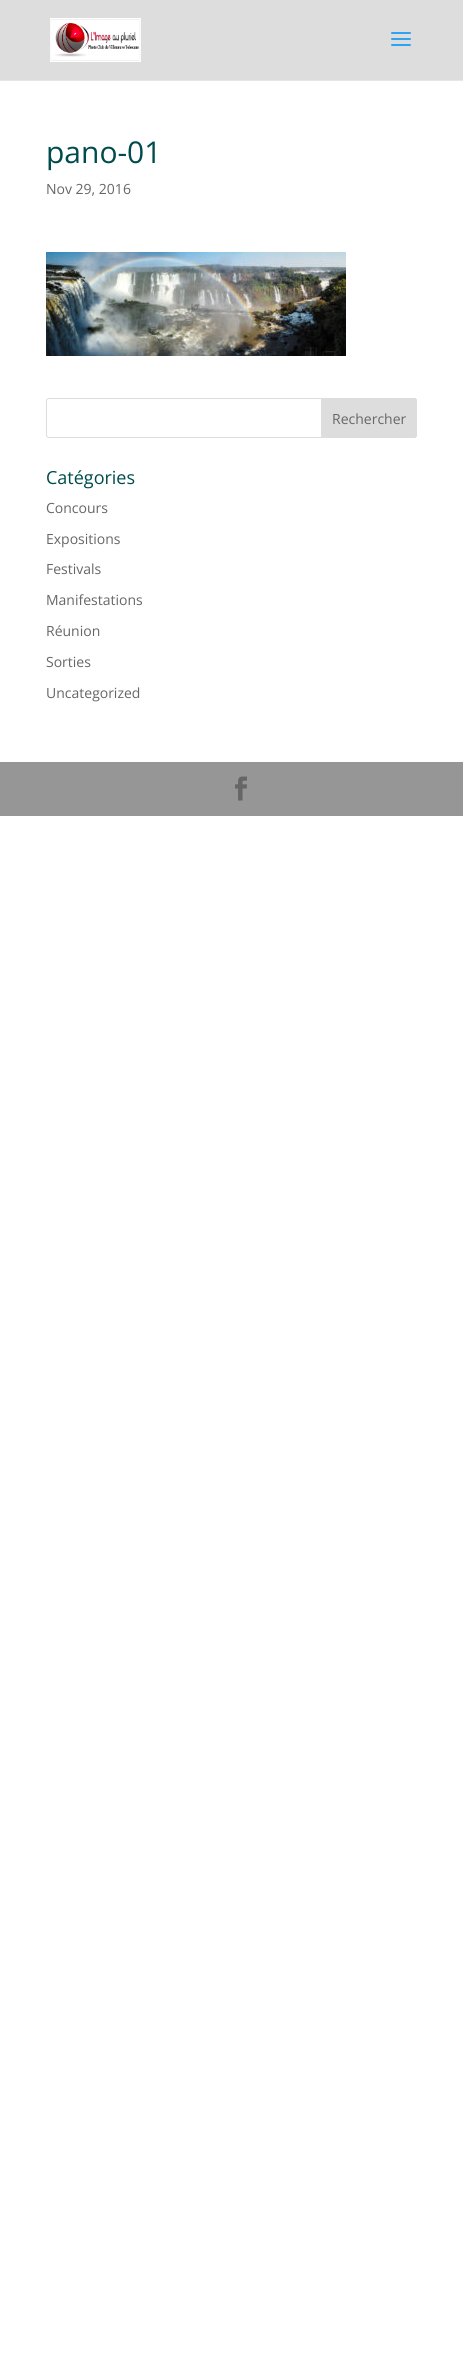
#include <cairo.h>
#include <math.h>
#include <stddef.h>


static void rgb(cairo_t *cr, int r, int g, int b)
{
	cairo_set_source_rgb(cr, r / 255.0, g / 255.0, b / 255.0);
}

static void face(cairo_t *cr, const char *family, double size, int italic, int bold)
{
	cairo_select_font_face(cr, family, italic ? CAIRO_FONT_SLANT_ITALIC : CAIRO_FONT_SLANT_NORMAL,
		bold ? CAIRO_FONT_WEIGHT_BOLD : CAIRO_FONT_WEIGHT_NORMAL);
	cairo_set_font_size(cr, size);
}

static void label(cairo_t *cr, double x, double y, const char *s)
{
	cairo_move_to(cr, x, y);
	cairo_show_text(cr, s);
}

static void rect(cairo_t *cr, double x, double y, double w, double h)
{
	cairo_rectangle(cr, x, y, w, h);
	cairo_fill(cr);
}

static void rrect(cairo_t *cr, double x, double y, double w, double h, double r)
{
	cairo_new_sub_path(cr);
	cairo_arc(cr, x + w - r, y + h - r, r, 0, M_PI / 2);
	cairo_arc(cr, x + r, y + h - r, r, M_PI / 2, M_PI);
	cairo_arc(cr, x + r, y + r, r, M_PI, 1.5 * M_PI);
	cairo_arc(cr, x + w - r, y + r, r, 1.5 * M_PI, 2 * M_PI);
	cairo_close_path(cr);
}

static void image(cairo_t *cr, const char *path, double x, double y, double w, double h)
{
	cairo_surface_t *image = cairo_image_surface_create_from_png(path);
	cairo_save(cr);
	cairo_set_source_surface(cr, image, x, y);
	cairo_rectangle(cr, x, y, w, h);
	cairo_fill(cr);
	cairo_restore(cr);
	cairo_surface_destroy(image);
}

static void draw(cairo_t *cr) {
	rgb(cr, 255, 255, 255);
	cairo_paint(cr);
	rgb(cr, 230, 230, 230);
	rect(cr, 0, 80, 463, 1);
	rgb(cr, 221, 221, 221);
	rect(cr, 0, 0, 463, 80);
	image(cr, "image0.png", 50, 18, 91, 44);
	image(cr, "image1.png", 391, 32, 20, 14);
	face(cr, "Open Sans", 30, 0, 0);
	rgb(cr, 0, 76, 76);
	label(cr, 46, 163, "pano-01");
	face(cr, "Open Sans", 14, 0, 0);
	rgb(cr, 102, 102, 102);
	label(cr, 46, 194, "Nov 29, 2016");
	image(cr, "image2.png", 46, 252, 300, 104);
	rrect(cr, 46.5, 398.5, 370, 39, 2.5);
	rgb(cr, 221, 221, 221);
	cairo_set_line_width(cr, 1);
	cairo_stroke(cr);
	cairo_new_path(cr);
	cairo_move_to(cr, 321.5, 398.5);
	cairo_line_to(cr, 414, 398.5);
	cairo_curve_to(cr, 415.5, 398.5, 416.5, 399.5, 416.5, 401);
	cairo_line_to(cr, 416.5, 435);
	cairo_curve_to(cr, 416.5, 436.5, 415.5, 437.5, 414, 437.5);
	cairo_line_to(cr, 321.5, 437.5);
	cairo_close_path(cr);
	cairo_fill_preserve(cr);
	cairo_stroke(cr);
	rgb(cr, 102, 102, 102);
	label(cr, 332, 424, "Rechercher");
	face(cr, "Open Sans", 18, 0, 0);
	rgb(cr, 0, 76, 76);
	label(cr, 46, 484, "Catégories");
	face(cr, "Open Sans", 14, 0, 0);
	rgb(cr, 102, 102, 102);
	label(cr, 46, 513, "Concours");
	label(cr, 46, 544, "Expositions");
	label(cr, 46, 574, "Festivals");
	label(cr, 46, 605, "Manifestations");
	label(cr, 46, 636, "Réunion");
	label(cr, 46, 667, "Sorties");
	label(cr, 46, 698, "Uncategorized");
	rgb(cr, 150, 150, 150);
	rect(cr, 0, 762, 463, 54);
	image(cr, "image3.png", 235, 776, 12, 25);
}

int main(void) {
	cairo_surface_t *surface = cairo_image_surface_create(CAIRO_FORMAT_RGB24, 463, 2366);
	cairo_t *cr = cairo_create(surface);
	cairo_font_options_t *options = cairo_font_options_create();
	cairo_font_options_set_hint_metrics(options, CAIRO_HINT_METRICS_OFF);
	cairo_font_options_set_hint_style(options, CAIRO_HINT_STYLE_NONE);
	cairo_set_font_options(cr, options);
	cairo_set_miter_limit(cr, 4);
	draw(cr);
	cairo_surface_write_to_png(surface, "render.png");
	cairo_font_options_destroy(options);
	cairo_destroy(cr);
	cairo_surface_destroy(surface);
	return 0;
}
